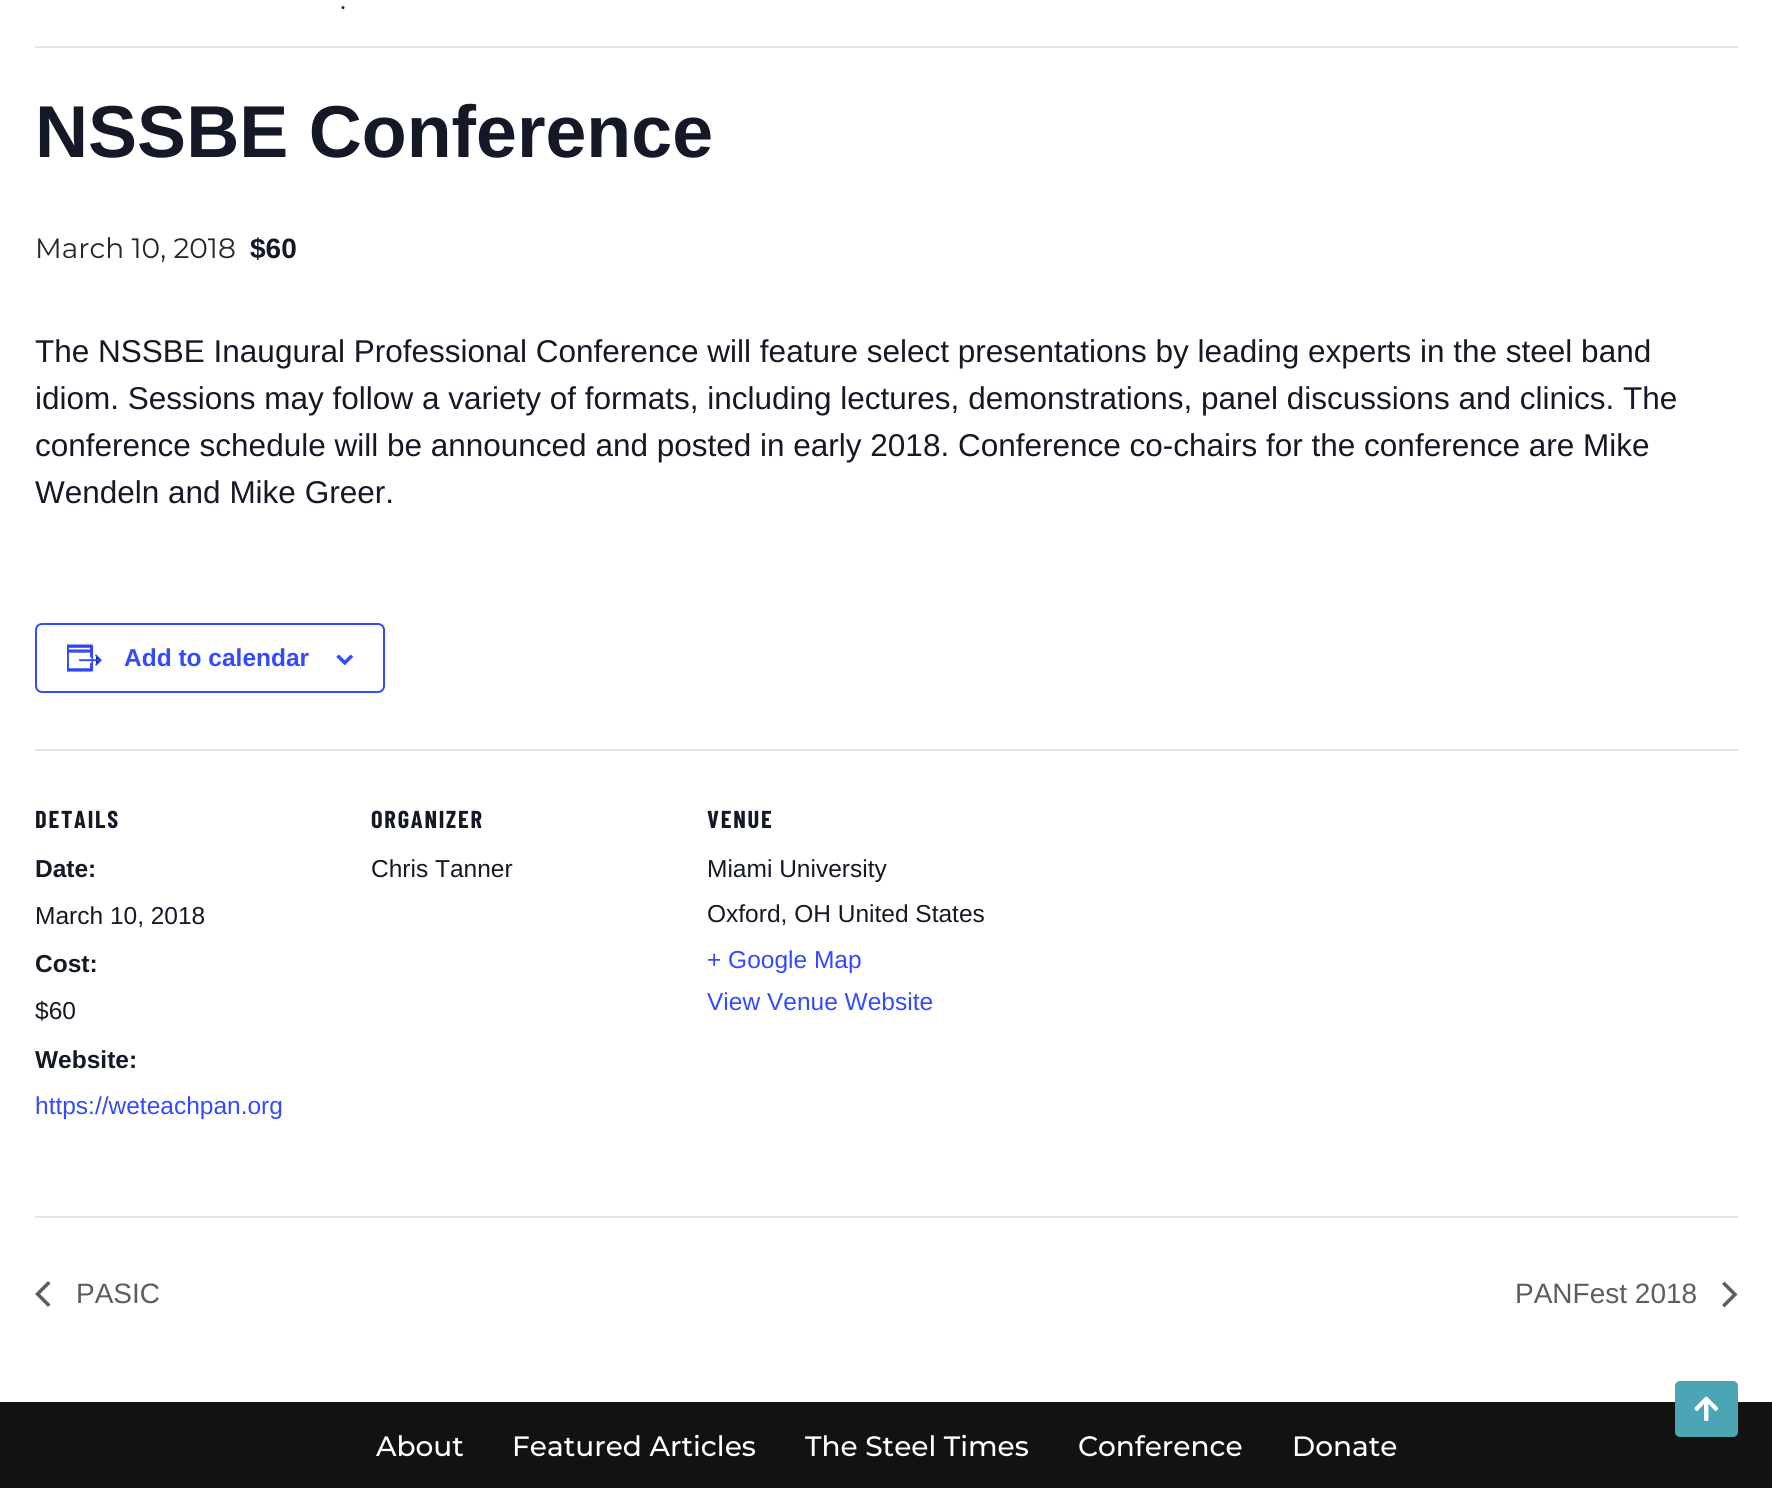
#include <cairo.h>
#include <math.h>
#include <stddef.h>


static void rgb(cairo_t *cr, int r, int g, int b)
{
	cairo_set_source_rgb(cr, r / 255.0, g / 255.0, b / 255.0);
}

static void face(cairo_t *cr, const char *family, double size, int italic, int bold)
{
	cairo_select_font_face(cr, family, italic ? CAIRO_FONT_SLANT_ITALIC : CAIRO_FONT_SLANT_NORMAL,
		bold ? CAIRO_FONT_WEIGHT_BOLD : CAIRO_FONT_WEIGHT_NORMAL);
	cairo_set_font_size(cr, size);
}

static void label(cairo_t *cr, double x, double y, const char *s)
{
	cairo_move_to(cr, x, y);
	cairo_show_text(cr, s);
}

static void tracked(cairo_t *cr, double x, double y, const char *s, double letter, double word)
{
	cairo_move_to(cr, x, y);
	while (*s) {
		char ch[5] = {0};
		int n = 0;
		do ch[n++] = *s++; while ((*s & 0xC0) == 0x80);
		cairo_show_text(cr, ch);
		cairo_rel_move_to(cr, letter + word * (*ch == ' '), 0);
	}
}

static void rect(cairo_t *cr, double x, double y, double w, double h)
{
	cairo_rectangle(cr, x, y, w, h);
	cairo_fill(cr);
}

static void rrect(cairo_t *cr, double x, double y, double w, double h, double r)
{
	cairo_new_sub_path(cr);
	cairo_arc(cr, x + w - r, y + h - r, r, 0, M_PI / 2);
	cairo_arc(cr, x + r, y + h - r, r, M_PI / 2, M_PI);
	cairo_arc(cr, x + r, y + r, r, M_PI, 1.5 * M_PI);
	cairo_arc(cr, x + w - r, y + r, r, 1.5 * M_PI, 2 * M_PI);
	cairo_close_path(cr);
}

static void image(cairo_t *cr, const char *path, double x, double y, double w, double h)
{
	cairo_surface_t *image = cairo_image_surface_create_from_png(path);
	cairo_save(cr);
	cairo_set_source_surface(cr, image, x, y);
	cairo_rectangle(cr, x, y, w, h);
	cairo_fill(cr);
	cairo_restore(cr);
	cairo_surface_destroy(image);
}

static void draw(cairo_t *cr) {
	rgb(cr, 255, 255, 255);
	cairo_paint(cr);
	rgb(cr, 228, 228, 228);
	rect(cr, 35, 46, 1703, 2);
	face(cr, "Montserrat", 28, 0, 0);
	rgb(cr, 39, 38, 38);
	label(cr, 340, 9, ".");
	face(cr, "Liberation Sans", 73.5, 0, 1);
	rgb(cr, 20, 24, 39);
	label(cr, 35, 157, "NSSBE Conference");
	face(cr, "Montserrat", 28, 0, 0);
	rgb(cr, 39, 38, 38);
	label(cr, 35, 258, "March 10, 2018");
	face(cr, "Liberation Sans", 28, 0, 1);
	rgb(cr, 20, 24, 39);
	label(cr, 250, 258, "$60");
	face(cr, "Liberation Sans", 31.5, 0, 0);
	label(cr, 35, 362, "The NSSBE Inaugural Professional Conference will feature select presentations by leading experts in the steel band");
	label(cr, 35, 409, "idiom. Sessions may follow a variety of formats, including lectures, demonstrations, panel discussions and clinics. The");
	label(cr, 35, 456, "conference schedule will be announced and posted in early 2018. Conference co-chairs for the conference are Mike");
	label(cr, 35, 503, "Wendeln and Mike Greer.");
	rrect(cr, 36, 624, 348, 68, 6);
	rgb(cr, 51, 74, 255);
	cairo_stroke(cr);
	image(cr, "image0.png", 67, 644, 35, 28);
	face(cr, "Liberation Sans", 24.5, 0, 1);
	label(cr, 124, 666, "Add to calendar");
	image(cr, "image1.png", 336, 655, 18, 10);
	rgb(cr, 228, 228, 228);
	rect(cr, 35, 749, 1703, 2);
	face(cr, "Barlow Condensed", 24.5, 0, 1);
	rgb(cr, 20, 24, 39);
	tracked(cr, 35, 828, "DETAILS", 1.75, 0);
	face(cr, "Liberation Sans", 24.5, 0, 1);
	label(cr, 35, 877, "Date:");
	face(cr, "Liberation Sans", 24.5, 0, 0);
	label(cr, 35, 924, "March 10, 2018");
	face(cr, "Liberation Sans", 24.5, 0, 1);
	label(cr, 35, 972, "Cost:");
	face(cr, "Liberation Sans", 24.5, 0, 0);
	label(cr, 35, 1019, "$60");
	face(cr, "Liberation Sans", 24.5, 0, 1);
	label(cr, 35, 1068, "Website:");
	face(cr, "Liberation Sans", 24.5, 0, 0);
	rgb(cr, 51, 74, 255);
	label(cr, 35, 1114, "https://weteachpan.org");
	face(cr, "Barlow Condensed", 24.5, 0, 1);
	rgb(cr, 20, 24, 39);
	tracked(cr, 371, 828, "ORGANIZER", 1.75, 0);
	face(cr, "Liberation Sans", 24.5, 0, 0);
	label(cr, 371, 877, "Chris Tanner");
	face(cr, "Barlow Condensed", 24.5, 0, 1);
	tracked(cr, 707, 828, "VENUE", 1.75, 0);
	face(cr, "Liberation Sans", 24.5, 0, 0);
	label(cr, 707, 877, "Miami University");
	label(cr, 707, 922, "Oxford, OH United States");
	rgb(cr, 51, 74, 255);
	label(cr, 707, 968, "+ Google Map");
	label(cr, 707, 1010, "View Venue Website");
	rgb(cr, 228, 228, 228);
	rect(cr, 35, 1216, 1703, 2);
	rgb(cr, 93, 93, 93);
	cairo_new_path(cr);
	cairo_move_to(cr, 50.5, 1304.5);
	cairo_line_to(cr, 48, 1307);
	cairo_line_to(cr, 35, 1294);
	cairo_line_to(cr, 48, 1281);
	cairo_line_to(cr, 50.5, 1283.5);
	cairo_line_to(cr, 40, 1294);
	cairo_close_path(cr);
	cairo_fill(cr);
	face(cr, "Liberation Sans", 28, 0, 0);
	label(cr, 76, 1303, "PASIC");
	label(cr, 1515, 1303, "PANFest 2018");
	cairo_new_path(cr);
	cairo_move_to(cr, 1722, 1284);
	cairo_line_to(cr, 1724.5, 1281.5);
	cairo_line_to(cr, 1737.5, 1294.5);
	cairo_line_to(cr, 1724.5, 1307.5);
	cairo_line_to(cr, 1722, 1305);
	cairo_line_to(cr, 1732.5, 1294.5);
	cairo_close_path(cr);
	cairo_fill(cr);
	rgb(cr, 18, 18, 18);
	rect(cr, 0, 1402, 1772, 86);
	rgb(cr, 75, 165, 181);
	rrect(cr, 1675, 1381, 63, 56, 5);
	cairo_fill(cr);
	image(cr, "image2.png", 1694, 1396, 25, 25);
	face(cr, "Montserrat Medium", 28, 0, 0);
	rgb(cr, 255, 255, 255);
	label(cr, 376, 1456, "About");
	label(cr, 512, 1456, "Featured Articles");
	label(cr, 805, 1456, "The Steel Times");
	label(cr, 1078, 1456, "Conference");
	label(cr, 1292, 1456, "Donate");
}

int main(void) {
	cairo_surface_t *surface = cairo_image_surface_create(CAIRO_FORMAT_RGB24, 1772, 1488);
	cairo_t *cr = cairo_create(surface);
	cairo_font_options_t *options = cairo_font_options_create();
	cairo_font_options_set_hint_metrics(options, CAIRO_HINT_METRICS_OFF);
	cairo_font_options_set_hint_style(options, CAIRO_HINT_STYLE_NONE);
	cairo_set_font_options(cr, options);
	cairo_set_miter_limit(cr, 4);
	draw(cr);
	cairo_surface_write_to_png(surface, "render.png");
	cairo_font_options_destroy(options);
	cairo_destroy(cr);
	cairo_surface_destroy(surface);
	return 0;
}
